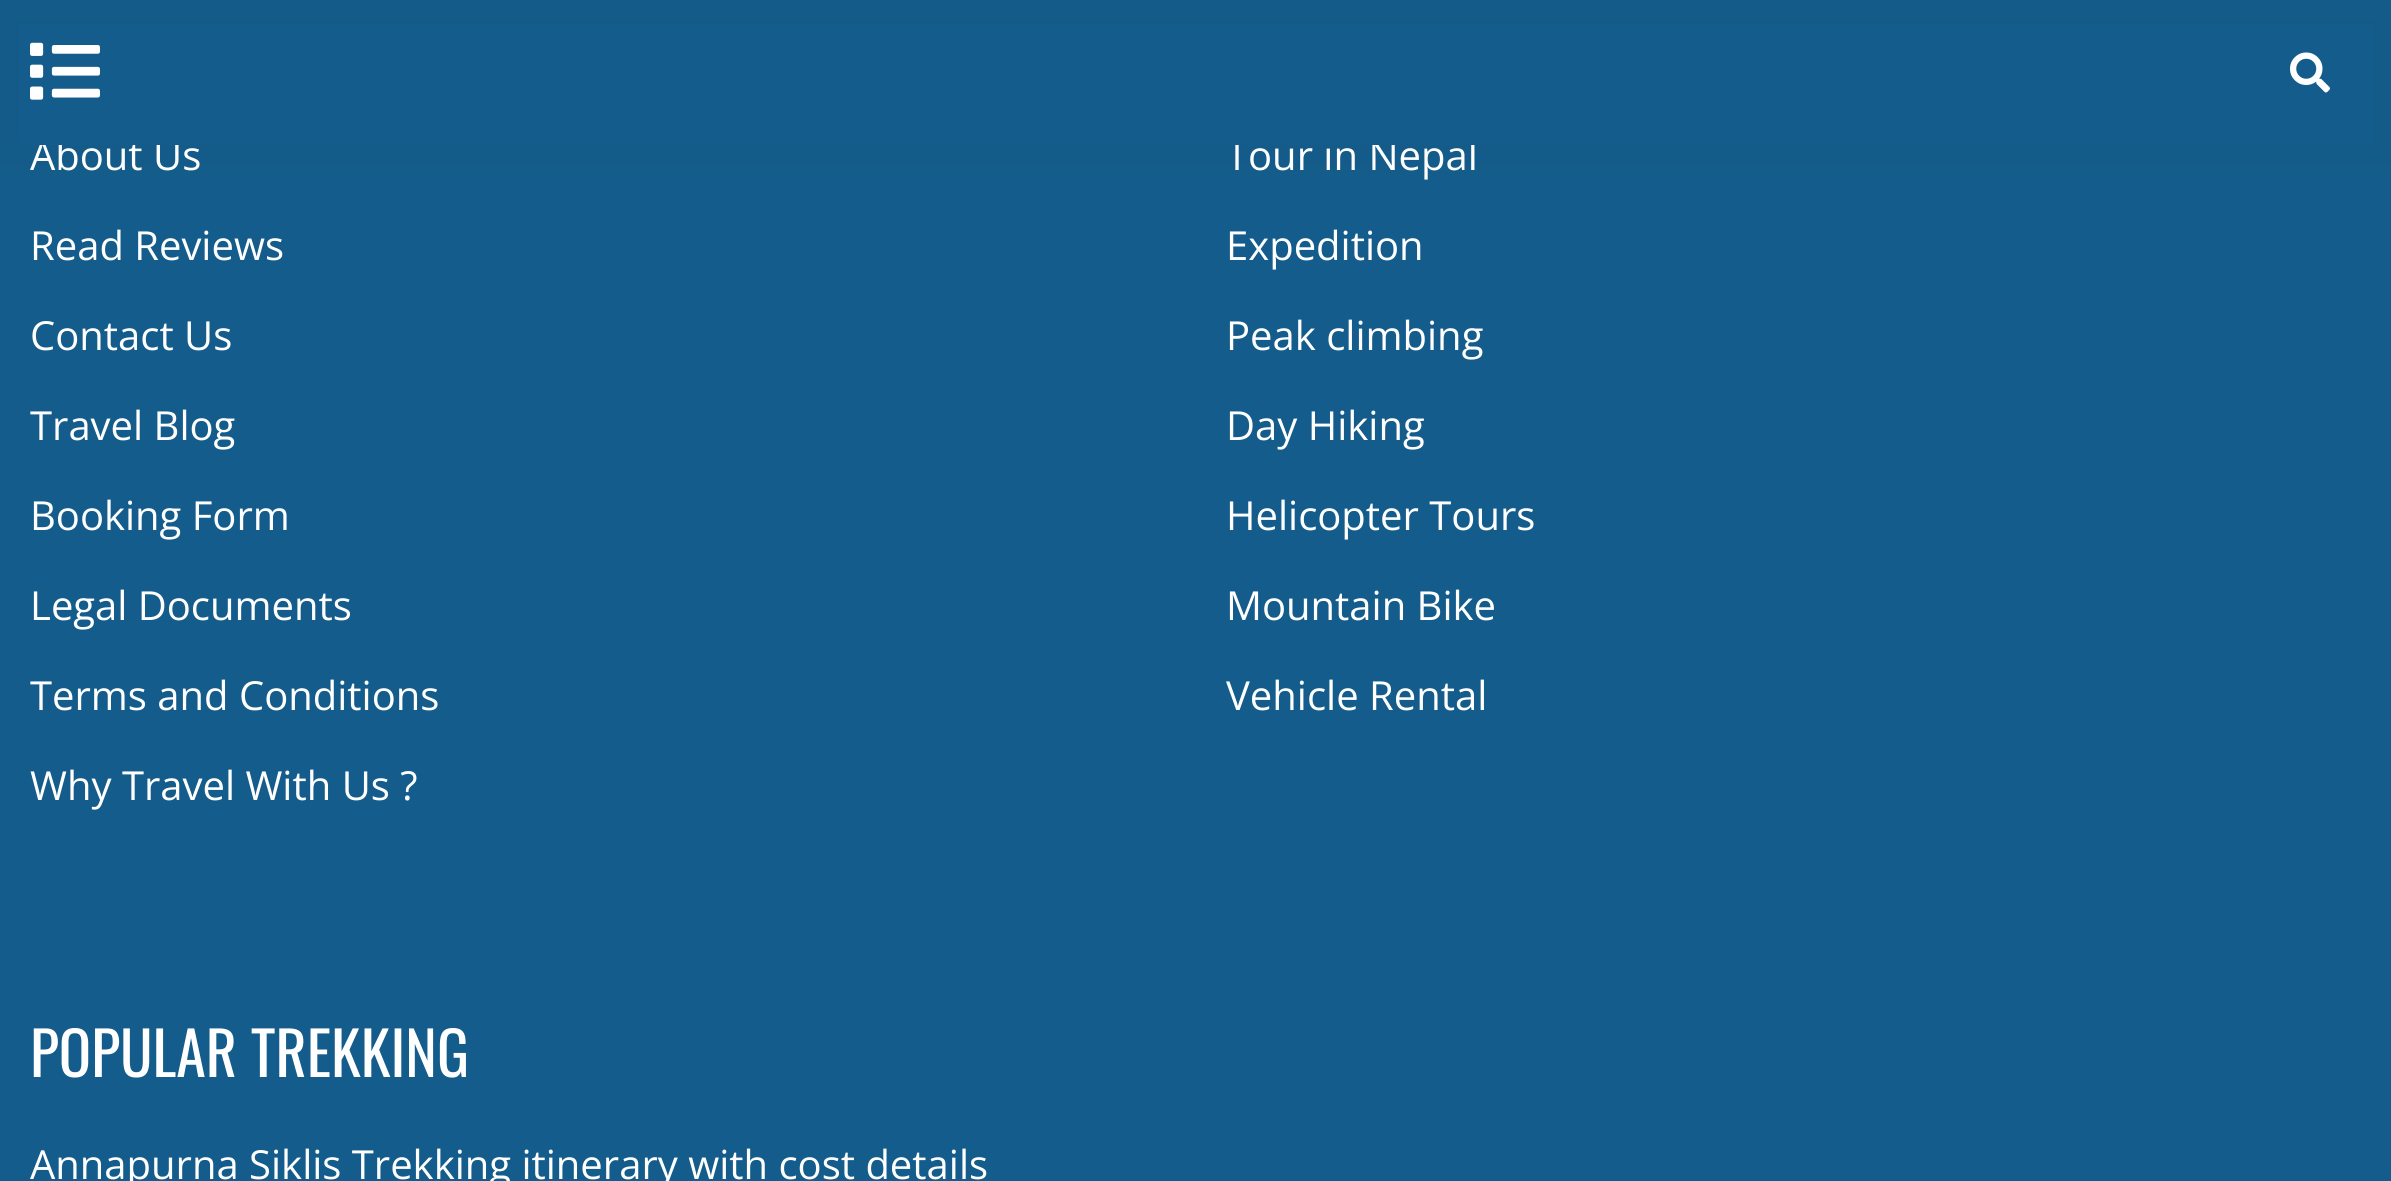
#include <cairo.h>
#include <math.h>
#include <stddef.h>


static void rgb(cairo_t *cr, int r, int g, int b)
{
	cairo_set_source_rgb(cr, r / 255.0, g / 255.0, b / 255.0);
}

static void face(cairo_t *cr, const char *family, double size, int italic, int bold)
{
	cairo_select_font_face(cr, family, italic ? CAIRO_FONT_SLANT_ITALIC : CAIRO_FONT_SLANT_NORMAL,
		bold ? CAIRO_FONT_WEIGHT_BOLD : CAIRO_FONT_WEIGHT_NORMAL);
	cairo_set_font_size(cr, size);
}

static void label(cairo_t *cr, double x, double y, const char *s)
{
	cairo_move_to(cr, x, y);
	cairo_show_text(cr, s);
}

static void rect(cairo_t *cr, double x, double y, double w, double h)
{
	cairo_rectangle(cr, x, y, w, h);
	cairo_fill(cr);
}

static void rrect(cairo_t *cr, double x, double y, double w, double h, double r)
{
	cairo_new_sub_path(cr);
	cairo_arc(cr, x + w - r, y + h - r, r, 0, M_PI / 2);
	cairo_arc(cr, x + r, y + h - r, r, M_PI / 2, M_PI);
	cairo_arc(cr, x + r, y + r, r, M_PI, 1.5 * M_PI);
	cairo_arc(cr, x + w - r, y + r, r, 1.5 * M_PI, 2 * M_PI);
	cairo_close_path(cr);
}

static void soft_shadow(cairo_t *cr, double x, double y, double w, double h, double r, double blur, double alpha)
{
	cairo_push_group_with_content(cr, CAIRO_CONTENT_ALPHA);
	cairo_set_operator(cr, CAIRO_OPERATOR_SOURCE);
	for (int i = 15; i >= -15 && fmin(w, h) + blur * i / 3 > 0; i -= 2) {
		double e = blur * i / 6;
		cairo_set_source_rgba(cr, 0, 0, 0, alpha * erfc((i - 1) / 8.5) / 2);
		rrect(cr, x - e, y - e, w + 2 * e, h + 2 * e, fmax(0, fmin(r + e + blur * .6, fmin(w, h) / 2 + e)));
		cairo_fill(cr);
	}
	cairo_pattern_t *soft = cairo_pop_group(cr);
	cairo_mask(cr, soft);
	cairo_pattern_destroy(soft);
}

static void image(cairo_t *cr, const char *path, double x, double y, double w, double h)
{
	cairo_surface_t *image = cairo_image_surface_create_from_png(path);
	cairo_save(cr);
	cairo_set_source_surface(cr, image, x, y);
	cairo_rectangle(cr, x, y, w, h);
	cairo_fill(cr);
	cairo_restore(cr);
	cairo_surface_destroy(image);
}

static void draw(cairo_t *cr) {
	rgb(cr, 20, 92, 139);
	cairo_paint(cr);
	rgb(cr, 18, 66, 101);
	soft_shadow(cr, 0, 5, 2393, 145, 0, 19, 0.08);
	face(cr, "Open Sans", 40, 0, 0);
	rgb(cr, 255, 255, 255);
	label(cr, 30, 170, "About Us");
	label(cr, 1226, 170, "Tour in Nepal");
	rgb(cr, 20, 92, 139);
	rect(cr, 19, 24, 2355, 121);
	image(cr, "image0.png", 30, 42, 70, 58);
	image(cr, "image1.png", 2290, 52, 40, 41);
	rgb(cr, 255, 255, 255);
	label(cr, 30, 260, "Read Reviews");
	label(cr, 30, 350, "Contact Us");
	label(cr, 30, 440, "Travel Blog");
	label(cr, 30, 530, "Booking Form");
	label(cr, 30, 620, "Legal Documents");
	label(cr, 30, 710, "Terms and Conditions");
	label(cr, 30, 800, "Why Travel With Us ?");
	label(cr, 1226, 260, "Expedition");
	label(cr, 1226, 350, "Peak climbing");
	label(cr, 1226, 440, "Day Hiking");
	label(cr, 1226, 530, "Helicopter Tours");
	label(cr, 1226, 620, "Mountain Bike");
	label(cr, 1226, 710, "Vehicle Rental");
	face(cr, "Oswald", 60, 0, 0);
	label(cr, 30, 1077, "POPULAR TREKKING");
	face(cr, "Open Sans", 40, 0, 0);
	label(cr, 30, 1179, "Annapurna Siklis Trekking itinerary with cost details");
}

int main(void) {
	cairo_surface_t *surface = cairo_image_surface_create(CAIRO_FORMAT_RGB24, 2391, 1181);
	cairo_t *cr = cairo_create(surface);
	cairo_font_options_t *options = cairo_font_options_create();
	cairo_font_options_set_hint_metrics(options, CAIRO_HINT_METRICS_OFF);
	cairo_font_options_set_hint_style(options, CAIRO_HINT_STYLE_NONE);
	cairo_set_font_options(cr, options);
	cairo_set_miter_limit(cr, 4);
	draw(cr);
	cairo_surface_write_to_png(surface, "render.png");
	cairo_font_options_destroy(options);
	cairo_destroy(cr);
	cairo_surface_destroy(surface);
	return 0;
}
